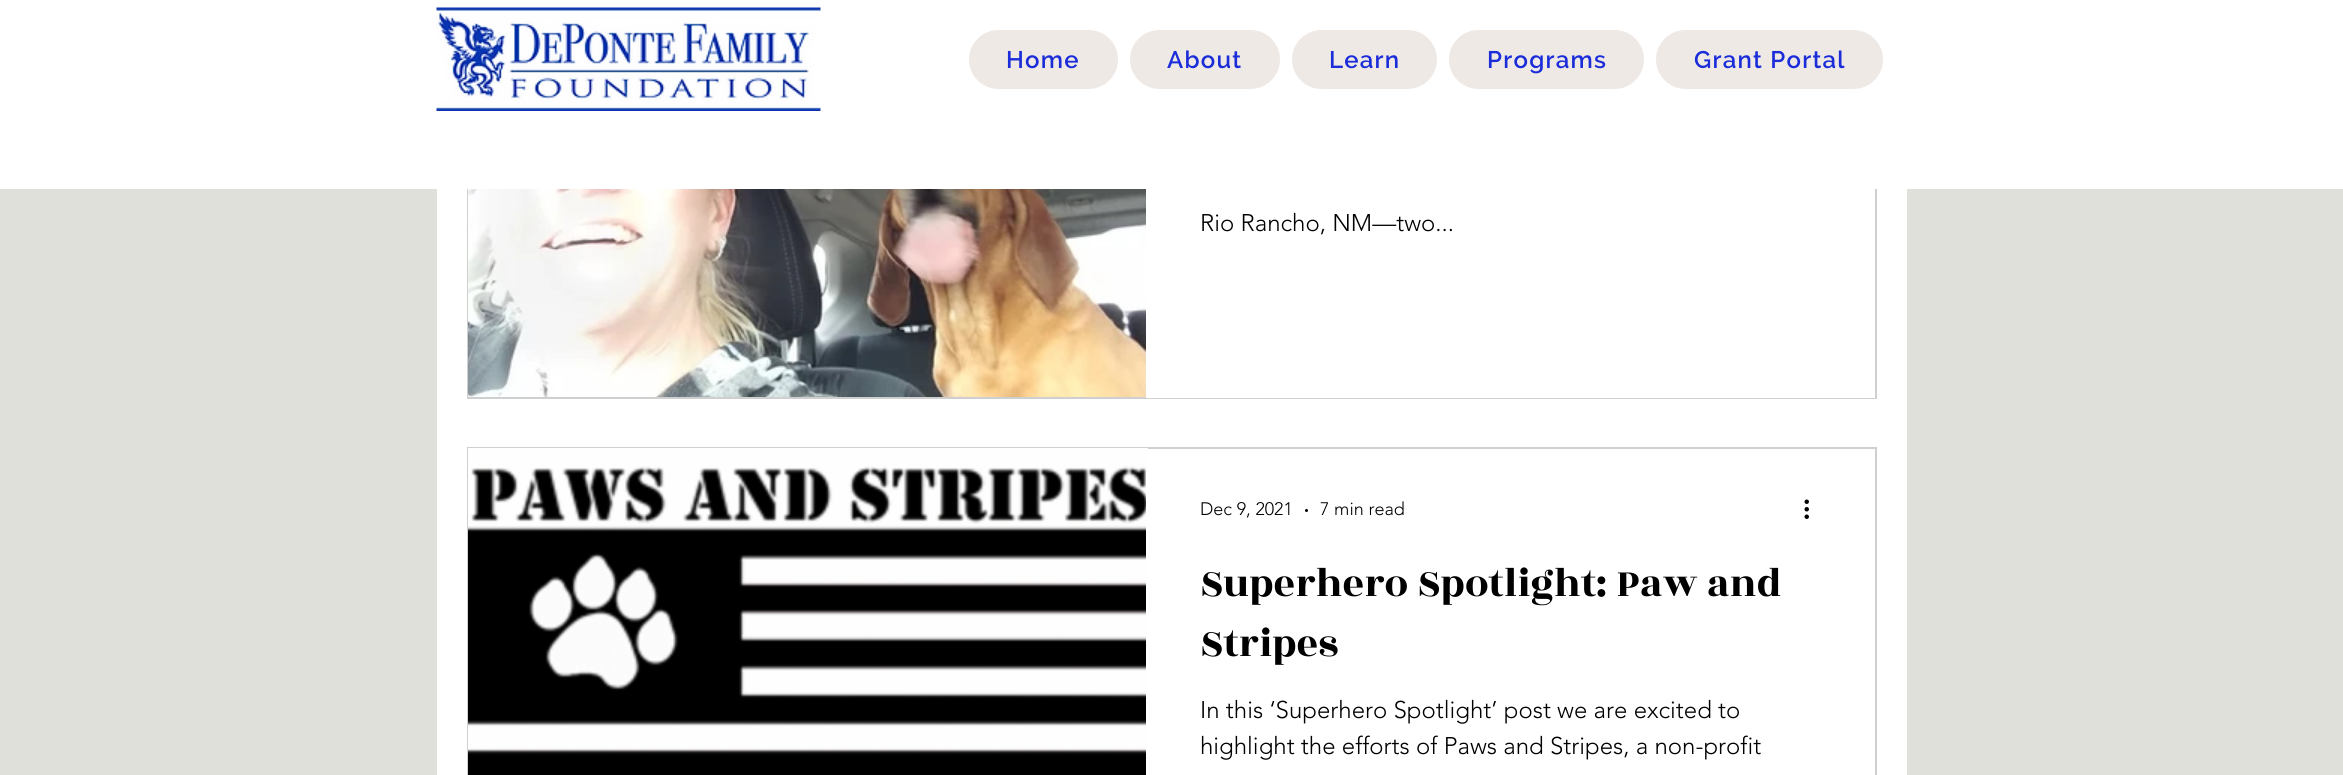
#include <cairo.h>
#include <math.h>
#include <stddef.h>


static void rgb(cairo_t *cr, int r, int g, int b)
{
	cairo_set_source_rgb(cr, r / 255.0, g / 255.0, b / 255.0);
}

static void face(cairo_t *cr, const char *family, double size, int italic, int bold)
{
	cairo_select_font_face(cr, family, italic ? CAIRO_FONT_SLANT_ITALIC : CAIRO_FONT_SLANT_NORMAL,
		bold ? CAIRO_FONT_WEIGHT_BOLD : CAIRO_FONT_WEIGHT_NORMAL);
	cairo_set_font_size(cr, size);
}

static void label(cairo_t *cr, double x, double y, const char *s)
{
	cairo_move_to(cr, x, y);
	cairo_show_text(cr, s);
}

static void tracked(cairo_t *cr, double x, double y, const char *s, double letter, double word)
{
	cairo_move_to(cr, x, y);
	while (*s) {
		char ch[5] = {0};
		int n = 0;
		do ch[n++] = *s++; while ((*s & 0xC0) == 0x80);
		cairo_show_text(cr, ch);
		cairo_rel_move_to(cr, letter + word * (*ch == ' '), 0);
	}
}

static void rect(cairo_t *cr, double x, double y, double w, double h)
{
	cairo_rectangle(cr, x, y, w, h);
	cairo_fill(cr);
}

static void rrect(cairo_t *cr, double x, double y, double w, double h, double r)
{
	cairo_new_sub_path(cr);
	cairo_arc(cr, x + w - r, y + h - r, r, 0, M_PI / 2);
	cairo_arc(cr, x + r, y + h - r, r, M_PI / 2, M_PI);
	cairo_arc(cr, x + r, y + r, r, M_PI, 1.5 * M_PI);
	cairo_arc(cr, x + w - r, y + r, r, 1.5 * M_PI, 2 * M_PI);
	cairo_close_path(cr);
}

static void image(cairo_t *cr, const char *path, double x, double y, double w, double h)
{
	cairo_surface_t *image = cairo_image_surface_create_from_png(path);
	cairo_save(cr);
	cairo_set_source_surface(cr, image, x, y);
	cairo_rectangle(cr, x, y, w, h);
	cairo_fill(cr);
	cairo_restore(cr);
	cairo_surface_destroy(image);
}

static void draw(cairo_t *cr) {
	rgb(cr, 223, 224, 218);
	cairo_paint(cr);
	rgb(cr, 255, 255, 255);
	rect(cr, 437, 189, 1470, 586);
	cairo_rectangle(cr, 468, -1, 1408, 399);
	rgb(cr, 207, 207, 207);
	cairo_stroke(cr);
	rgb(cr, 255, 255, 255);
	rect(cr, 0, 0, 2343, 189);
	image(cr, "image0.png", 436, 7, 385, 104);
	rgb(cr, 239, 233, 230);
	rrect(cr, 969, 30, 149, 59, 29.5);
	cairo_fill(cr);
	face(cr, "Raleway SemiBold", 24, 0, 0);
	rgb(cr, 26, 45, 217);
	tracked(cr, 1006, 68, "Home", 1.25, 0);
	rgb(cr, 239, 233, 230);
	rrect(cr, 1130, 30, 150, 59, 29.5);
	cairo_fill(cr);
	rgb(cr, 26, 45, 217);
	tracked(cr, 1167, 68, "About", 1.25, 0);
	rgb(cr, 239, 233, 230);
	rrect(cr, 1292, 30, 145, 59, 29.5);
	cairo_fill(cr);
	rgb(cr, 26, 45, 217);
	tracked(cr, 1329, 68, "Learn", 1.25, 0);
	rgb(cr, 239, 233, 230);
	rrect(cr, 1449, 30, 195, 59, 29.5);
	cairo_fill(cr);
	rgb(cr, 26, 45, 217);
	tracked(cr, 1487, 68, "Programs", 1.25, 0);
	rgb(cr, 239, 233, 230);
	rrect(cr, 1656, 30, 227, 59, 29.5);
	cairo_fill(cr);
	rgb(cr, 26, 45, 217);
	tracked(cr, 1694, 68, "Grant Portal", 1.25, 0);
	image(cr, "image1.png", 468, 189, 678, 208);
	rgb(cr, 255, 255, 255);
	rect(cr, 1146, 397, 729, 1);
	face(cr, "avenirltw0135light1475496 Light", 24, 0, 0);
	rgb(cr, 0, 0, 0);
	label(cr, 1200, 231, "Rio Rancho, NM—two...");
	cairo_rectangle(cr, 468, 448, 1408, 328);
	rgb(cr, 207, 207, 207);
	cairo_stroke(cr);
	image(cr, "image2.png", 468, 448, 680, 327);
	rgb(cr, 255, 255, 255);
	rect(cr, 1146, 467, 2, 308);
	face(cr, "avenirltw0135light1475496 Light", 18, 0, 0);
	rgb(cr, 0, 0, 0);
	label(cr, 1200, 515, "Dec 9, 2021");
	cairo_new_path(cr);
	cairo_arc(cr, 1306.5, 510.5, 1.5, 0, 2 * M_PI);
	cairo_fill(cr);
	label(cr, 1320, 515, "7 min read");
	image(cr, "image3.png", 1804, 499, 5, 20);
	face(cr, "Rozha One", 42, 0, 0);
	label(cr, 1200, 596, "Superhero Spotlight: Paw and");
	label(cr, 1200, 656, "Stripes");
	face(cr, "avenirltw0135light1475496 Light", 24, 0, 0);
	label(cr, 1200, 718, "In this ‘Superhero Spotlight’ post we are excited to");
	label(cr, 1200, 754, "highlight the efforts of Paws and Stripes, a non-profit");
}

int main(void) {
	cairo_surface_t *surface = cairo_image_surface_create(CAIRO_FORMAT_RGB24, 2343, 775);
	cairo_t *cr = cairo_create(surface);
	cairo_font_options_t *options = cairo_font_options_create();
	cairo_font_options_set_hint_metrics(options, CAIRO_HINT_METRICS_OFF);
	cairo_font_options_set_hint_style(options, CAIRO_HINT_STYLE_NONE);
	cairo_set_font_options(cr, options);
	cairo_set_miter_limit(cr, 4);
	draw(cr);
	cairo_surface_write_to_png(surface, "render.png");
	cairo_font_options_destroy(options);
	cairo_destroy(cr);
	cairo_surface_destroy(surface);
	return 0;
}
